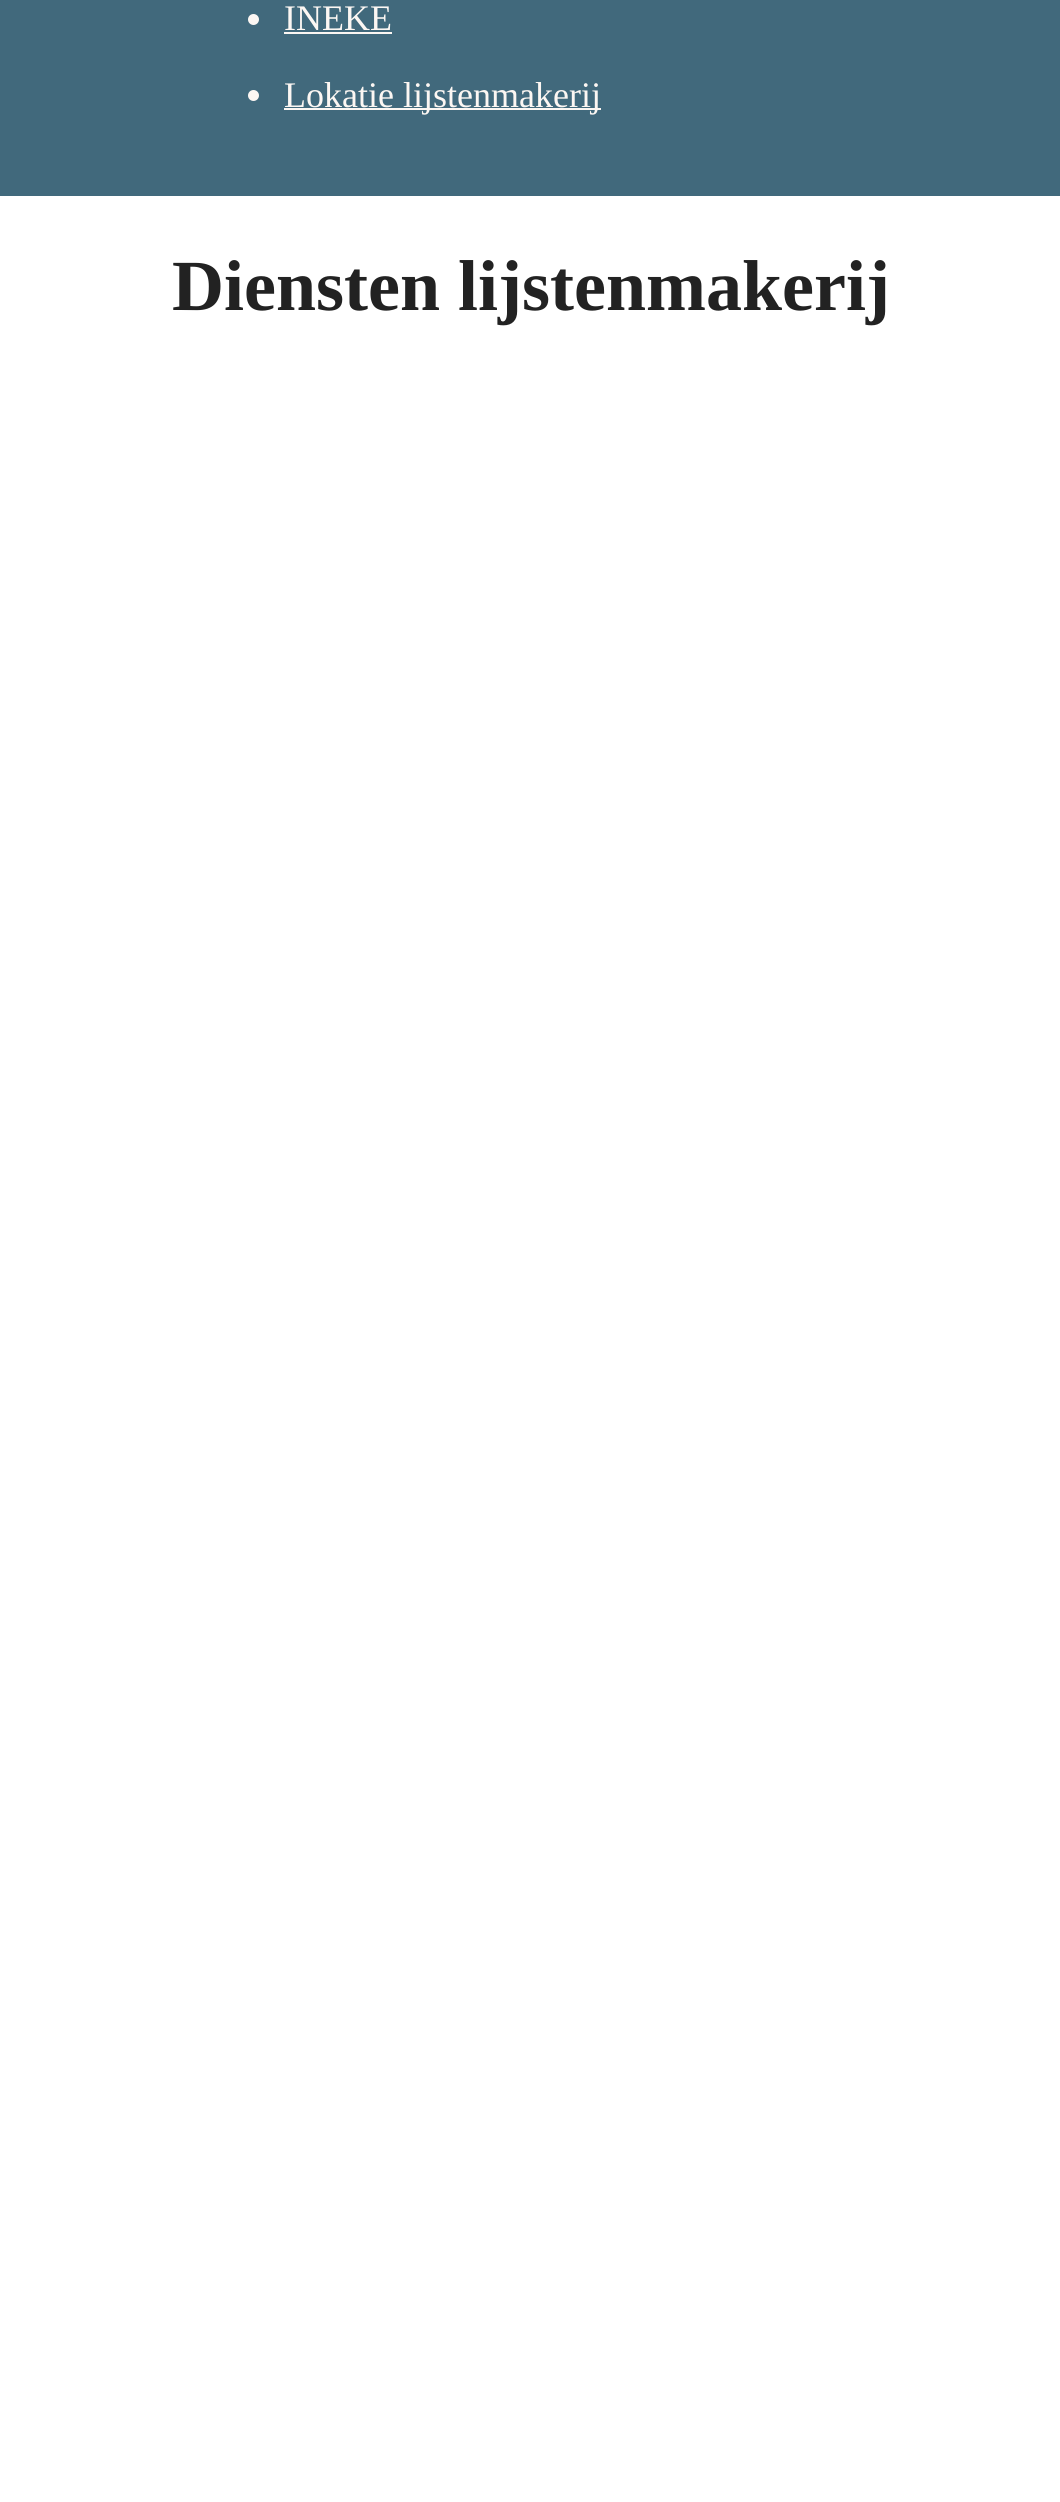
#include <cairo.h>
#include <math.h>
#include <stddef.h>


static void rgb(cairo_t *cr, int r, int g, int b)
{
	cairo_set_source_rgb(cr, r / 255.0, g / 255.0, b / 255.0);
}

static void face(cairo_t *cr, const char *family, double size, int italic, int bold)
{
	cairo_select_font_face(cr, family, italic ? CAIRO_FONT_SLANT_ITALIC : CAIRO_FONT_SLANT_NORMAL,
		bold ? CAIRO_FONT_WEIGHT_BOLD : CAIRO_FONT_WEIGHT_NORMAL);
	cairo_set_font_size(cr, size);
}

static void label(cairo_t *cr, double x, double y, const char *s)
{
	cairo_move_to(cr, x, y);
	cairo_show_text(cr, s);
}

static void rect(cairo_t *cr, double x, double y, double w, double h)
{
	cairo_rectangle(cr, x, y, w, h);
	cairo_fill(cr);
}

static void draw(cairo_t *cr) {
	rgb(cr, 255, 255, 255);
	cairo_paint(cr);
	rgb(cr, 65, 105, 124);
	rect(cr, 0, 0, 1060, 196);
	rgb(cr, 252, 247, 243);
	cairo_arc(cr, 253.5, 19.5, 5.5, 0, 2 * M_PI);
	cairo_fill(cr);
	face(cr, "Liberation Serif", 36, 0, 0);
	label(cr, 284, 30, "INEKE");
	rect(cr, 284, 32, 108, 2);
	cairo_new_path(cr);
	cairo_arc(cr, 253.5, 95.5, 5.5, 0, 2 * M_PI);
	cairo_fill(cr);
	rect(cr, 284, 108, 317, 2);
	label(cr, 284, 107, "Lokatie lijstenmakerij");
	face(cr, "Liberation Serif", 72, 0, 1);
	rgb(cr, 34, 34, 34);
	label(cr, 172, 310, "Diensten lijstenmakerij");
}

int main(void) {
	cairo_surface_t *surface = cairo_image_surface_create(CAIRO_FORMAT_RGB24, 1060, 2502);
	cairo_t *cr = cairo_create(surface);
	cairo_font_options_t *options = cairo_font_options_create();
	cairo_font_options_set_hint_metrics(options, CAIRO_HINT_METRICS_OFF);
	cairo_font_options_set_hint_style(options, CAIRO_HINT_STYLE_NONE);
	cairo_set_font_options(cr, options);
	cairo_set_miter_limit(cr, 4);
	draw(cr);
	cairo_surface_write_to_png(surface, "render.png");
	cairo_font_options_destroy(options);
	cairo_destroy(cr);
	cairo_surface_destroy(surface);
	return 0;
}
